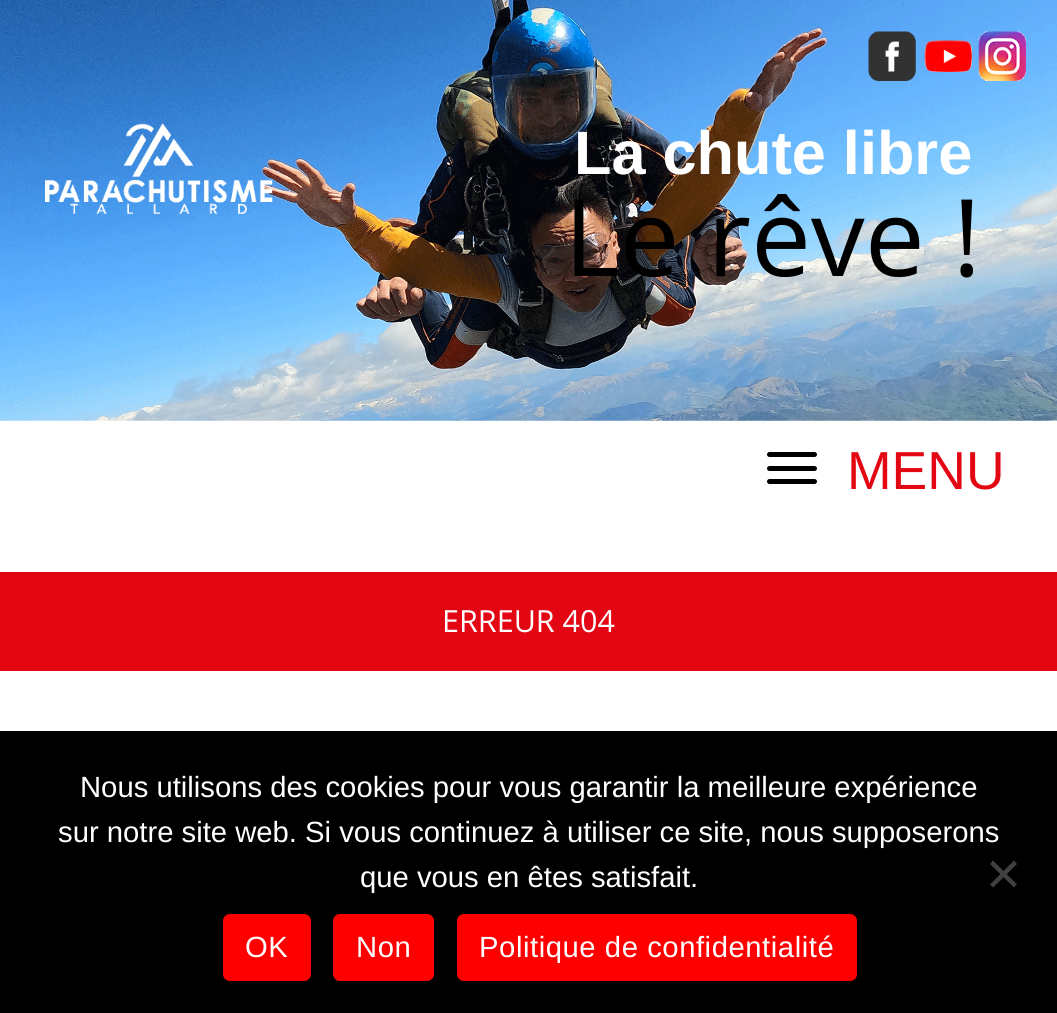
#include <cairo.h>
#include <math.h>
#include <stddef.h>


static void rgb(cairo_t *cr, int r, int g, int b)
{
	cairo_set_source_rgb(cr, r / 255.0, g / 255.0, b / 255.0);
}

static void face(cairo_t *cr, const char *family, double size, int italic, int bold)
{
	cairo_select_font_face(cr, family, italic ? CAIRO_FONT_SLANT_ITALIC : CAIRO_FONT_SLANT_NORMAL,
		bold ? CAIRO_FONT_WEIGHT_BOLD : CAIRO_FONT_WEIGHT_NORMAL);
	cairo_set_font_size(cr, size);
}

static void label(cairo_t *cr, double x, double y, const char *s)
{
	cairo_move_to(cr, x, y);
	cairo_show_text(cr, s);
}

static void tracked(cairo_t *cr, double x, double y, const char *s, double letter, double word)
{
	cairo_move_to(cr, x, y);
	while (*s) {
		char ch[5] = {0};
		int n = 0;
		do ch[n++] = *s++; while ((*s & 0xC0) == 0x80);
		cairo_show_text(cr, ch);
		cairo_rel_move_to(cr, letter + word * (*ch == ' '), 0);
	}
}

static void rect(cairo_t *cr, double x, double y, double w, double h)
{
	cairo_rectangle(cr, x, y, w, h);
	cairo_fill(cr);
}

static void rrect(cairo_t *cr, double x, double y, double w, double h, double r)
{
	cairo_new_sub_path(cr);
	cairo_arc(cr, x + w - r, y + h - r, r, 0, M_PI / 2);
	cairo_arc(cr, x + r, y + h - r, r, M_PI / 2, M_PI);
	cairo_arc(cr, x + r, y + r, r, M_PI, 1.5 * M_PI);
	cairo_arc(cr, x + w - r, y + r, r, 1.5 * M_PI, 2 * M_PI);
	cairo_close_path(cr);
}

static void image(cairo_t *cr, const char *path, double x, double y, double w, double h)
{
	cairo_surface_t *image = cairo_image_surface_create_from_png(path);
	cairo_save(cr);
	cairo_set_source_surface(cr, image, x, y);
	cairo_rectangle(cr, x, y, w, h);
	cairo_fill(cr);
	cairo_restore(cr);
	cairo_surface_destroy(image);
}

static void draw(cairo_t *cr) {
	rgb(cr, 255, 255, 255);
	cairo_paint(cr);
	image(cr, "image0.png", 0, 0, 1057, 421);
	image(cr, "image1.png", 868, 31, 48, 50);
	image(cr, "image2.png", 924, 40, 48, 32);
	image(cr, "image3.png", 978, 31, 48, 50);
	image(cr, "image4.png", 45, 123, 228, 91);
	face(cr, "Liberation Sans", 61.25, 0, 1);
	rgb(cr, 255, 255, 255);
	label(cr, 574, 174, "La chute libre");
	face(cr, "Open Sans", 107, 0, 0);
	rgb(cr, 0, 0, 0);
	label(cr, 564, 276, "Le rêve !");
	rrect(cr, 767, 452, 50, 5, 2.5);
	cairo_fill(cr);
	rrect(cr, 767, 466, 50, 5, 2.5);
	cairo_fill(cr);
	rrect(cr, 767, 479, 50, 5, 2.5);
	cairo_fill(cr);
	face(cr, "Liberation Sans", 53.5, 0, 0);
	rgb(cr, 227, 6, 19);
	label(cr, 847, 489, "MENU");
	rect(cr, 0, 572, 1057, 99);
	face(cr, "Open Sans", 30.5, 0, 0);
	rgb(cr, 255, 255, 255);
	label(cr, 442, 632, "ERREUR 404");
	rgb(cr, 0, 0, 0);
	rect(cr, 0, 731, 1057, 282);
	face(cr, "Liberation Sans", 29.25, 0, 0);
	rgb(cr, 255, 255, 255);
	label(cr, 80, 797, "Nous utilisons des cookies pour vous garantir la meilleure expérience");
	label(cr, 58, 842, "sur notre site web. Si vous continuez à utiliser ce site, nous supposerons");
	label(cr, 360, 887, "que vous en êtes satisfait.");
	rgb(cr, 64, 64, 64);
	cairo_new_path(cr);
	cairo_move_to(cr, 1014, 860.5);
	cairo_line_to(cr, 1017, 864);
	cairo_line_to(cr, 993, 887.5);
	cairo_line_to(cr, 990, 884.5);
	cairo_close_path(cr);
	cairo_fill(cr);
	cairo_new_path(cr);
	cairo_move_to(cr, 990, 864);
	cairo_line_to(cr, 993, 860.5);
	cairo_line_to(cr, 1017, 884.5);
	cairo_line_to(cr, 1014, 887.5);
	cairo_close_path(cr);
	cairo_fill(cr);
	rgb(cr, 255, 0, 0);
	rrect(cr, 223, 914, 88, 67, 7);
	cairo_fill(cr);
	rgb(cr, 255, 255, 255);
	tracked(cr, 245, 957, "OK", 0.55, 0);
	rgb(cr, 255, 0, 0);
	rrect(cr, 333, 914, 101, 67, 7);
	cairo_fill(cr);
	rgb(cr, 255, 255, 255);
	tracked(cr, 356, 957, "Non", 0.55, 0);
	rgb(cr, 255, 0, 0);
	rrect(cr, 457, 914, 400, 67, 7);
	cairo_fill(cr);
	rgb(cr, 255, 255, 255);
	tracked(cr, 479, 957, "Politique de confidentialité", 0.55, 0);
}

int main(void) {
	cairo_surface_t *surface = cairo_image_surface_create(CAIRO_FORMAT_RGB24, 1057, 1013);
	cairo_t *cr = cairo_create(surface);
	cairo_font_options_t *options = cairo_font_options_create();
	cairo_font_options_set_hint_metrics(options, CAIRO_HINT_METRICS_OFF);
	cairo_font_options_set_hint_style(options, CAIRO_HINT_STYLE_NONE);
	cairo_set_font_options(cr, options);
	cairo_set_miter_limit(cr, 4);
	draw(cr);
	cairo_surface_write_to_png(surface, "render.png");
	cairo_font_options_destroy(options);
	cairo_destroy(cr);
	cairo_surface_destroy(surface);
	return 0;
}
